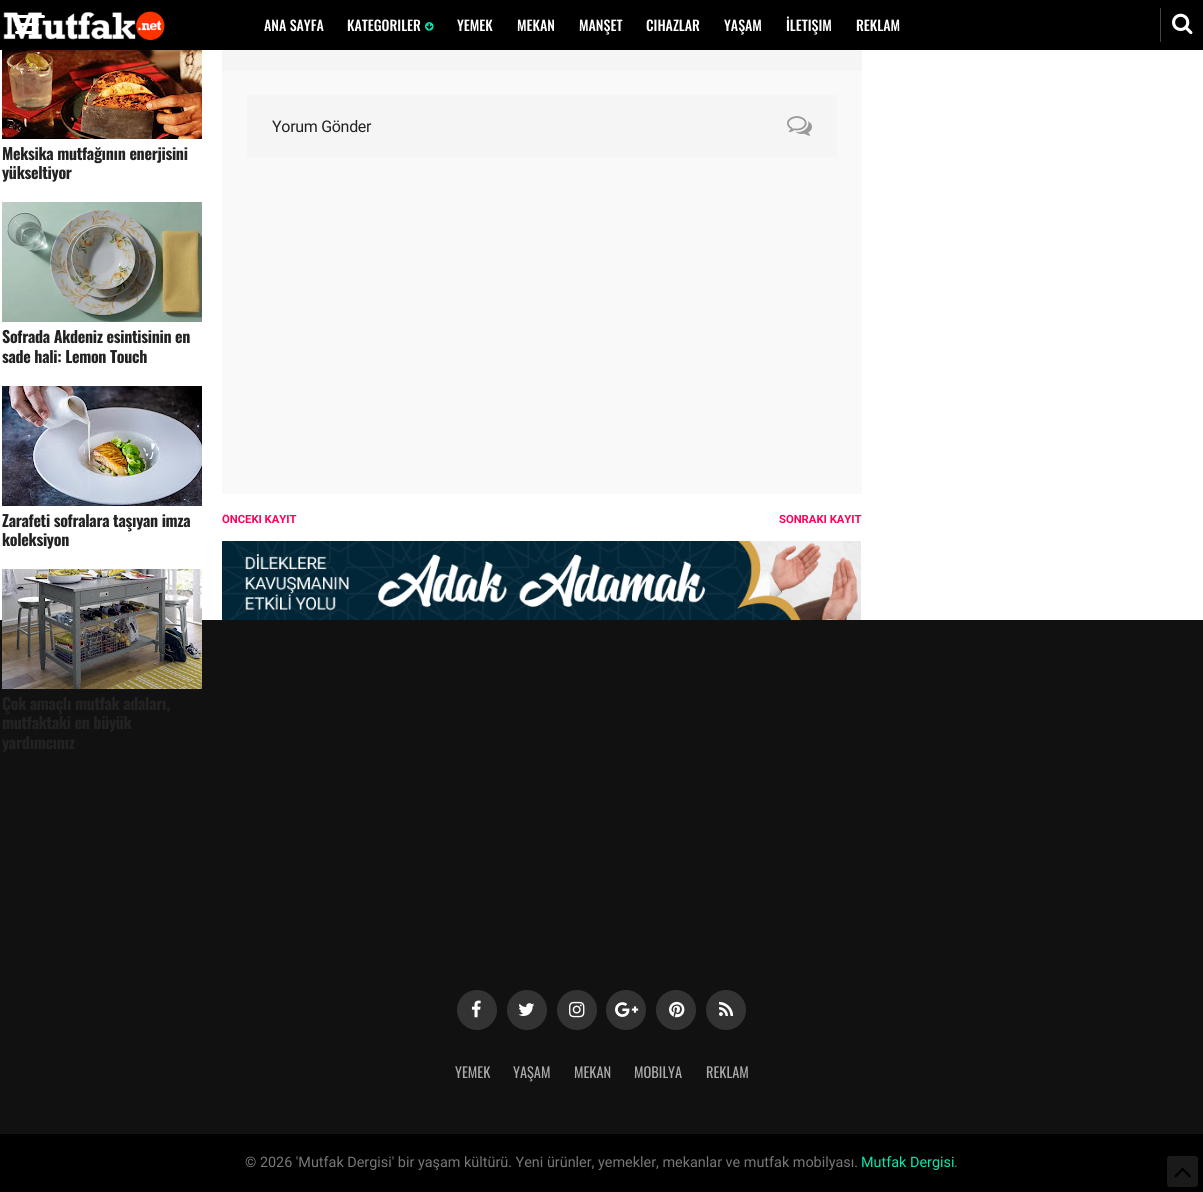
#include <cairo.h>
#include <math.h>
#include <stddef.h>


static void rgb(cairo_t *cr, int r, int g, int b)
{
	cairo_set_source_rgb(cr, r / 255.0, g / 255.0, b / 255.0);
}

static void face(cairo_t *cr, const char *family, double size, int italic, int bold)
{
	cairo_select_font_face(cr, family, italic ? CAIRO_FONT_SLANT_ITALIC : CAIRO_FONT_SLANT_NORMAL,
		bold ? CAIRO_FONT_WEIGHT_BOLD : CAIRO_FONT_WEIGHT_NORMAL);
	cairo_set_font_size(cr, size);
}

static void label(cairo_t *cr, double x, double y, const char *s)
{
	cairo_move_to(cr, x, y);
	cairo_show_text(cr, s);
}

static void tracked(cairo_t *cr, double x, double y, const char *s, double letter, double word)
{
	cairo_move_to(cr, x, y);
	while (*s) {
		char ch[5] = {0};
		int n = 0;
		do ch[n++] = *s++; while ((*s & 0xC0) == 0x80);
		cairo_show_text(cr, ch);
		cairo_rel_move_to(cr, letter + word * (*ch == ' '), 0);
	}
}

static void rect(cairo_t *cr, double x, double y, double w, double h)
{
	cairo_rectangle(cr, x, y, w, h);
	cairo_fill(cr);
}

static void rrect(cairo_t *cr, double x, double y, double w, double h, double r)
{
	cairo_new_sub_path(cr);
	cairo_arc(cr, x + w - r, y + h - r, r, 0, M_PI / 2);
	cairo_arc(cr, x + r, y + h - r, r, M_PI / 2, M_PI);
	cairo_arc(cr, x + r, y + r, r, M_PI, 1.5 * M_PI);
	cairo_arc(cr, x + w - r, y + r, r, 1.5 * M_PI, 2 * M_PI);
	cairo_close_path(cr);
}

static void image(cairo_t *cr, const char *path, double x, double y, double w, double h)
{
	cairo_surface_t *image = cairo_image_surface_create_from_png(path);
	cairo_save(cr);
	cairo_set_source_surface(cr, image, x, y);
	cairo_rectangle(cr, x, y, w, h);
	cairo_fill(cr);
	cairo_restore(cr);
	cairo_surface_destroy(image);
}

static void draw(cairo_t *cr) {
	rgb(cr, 255, 255, 255);
	cairo_paint(cr);
	rgb(cr, 0, 0, 0);
	rect(cr, 0, 0, 1203, 50);
	image(cr, "image1.png", 3, 11, 162, 30);
	rgb(cr, 255, 255, 255);
	rrect(cr, 15, 15, 30, 3, 1.5);
	cairo_fill(cr);
	rrect(cr, 15, 23, 24, 3, 1.5);
	cairo_fill(cr);
	rrect(cr, 15, 31, 18, 3, 1.5);
	cairo_fill(cr);
	rgb(cr, 68, 68, 68);
	rect(cr, 1160, 8, 1, 34);
	image(cr, "image0.png", 1172, 13, 21, 22);
	face(cr, "Oswald Medium", 14, 0, 0);
	rgb(cr, 255, 255, 255);
	label(cr, 264, 31, "ANA SAYFA");
	label(cr, 347, 31, "KATEGORILER");
	image(cr, "image2.png", 425, 22, 9, 9);
	label(cr, 457, 31, "YEMEK");
	label(cr, 517, 31, "MEKAN");
	label(cr, 579, 31, "MANŞET");
	label(cr, 646, 31, "CIHAZLAR");
	label(cr, 724, 31, "YAŞAM");
	label(cr, 786, 31, "İLETIŞIM");
	label(cr, 856, 31, "REKLAM");
	image(cr, "image3.png", 2, 50, 200, 89);
	face(cr, "Oswald", 16, 0, 1);
	rgb(cr, 34, 34, 34);
	tracked(cr, 2, 160, "Meksika mutfağının enerjisini", -0.3, 0);
	tracked(cr, 2, 179, "yükseltiyor", -0.3, 0);
	image(cr, "image4.png", 2, 202, 200, 120);
	tracked(cr, 2, 343, "Sofrada Akdeniz esintisinin en", -0.3, 0);
	tracked(cr, 2, 363, "sade hali: Lemon Touch", -0.3, 0);
	image(cr, "image5.png", 2, 386, 200, 120);
	tracked(cr, 2, 527, "Zarafeti sofralara taşıyan imza", -0.3, 0);
	tracked(cr, 2, 546, "koleksiyon", -0.3, 0);
	rgb(cr, 17, 17, 17);
	rect(cr, 0, 620, 1203, 514);
	image(cr, "image6.png", 2, 569, 200, 120);
	rgb(cr, 34, 34, 34);
	tracked(cr, 2, 710, "Çok amaçlı mutfak adaları,", -0.3, 0);
	tracked(cr, 2, 729, "mutfaktaki en büyük", -0.3, 0);
	tracked(cr, 2, 749, "yardımcınız", -0.3, 0);
	rgb(cr, 249, 249, 249);
	rect(cr, 222, 71, 640, 423);
	rgb(cr, 245, 245, 245);
	rect(cr, 222, 50, 640, 21);
	rect(cr, 247, 95, 590, 62);
	face(cr, "Roboto", 16, 0, 0);
	rgb(cr, 34, 34, 34);
	tracked(cr, 272, 132, "Yorum Gönder", -0.3, 0);
	image(cr, "image7.png", 787, 116, 25, 20);
	cairo_save(cr);
	cairo_rectangle(cr, 222, 514, 640, 11);
	cairo_clip(cr);
	face(cr, "Roboto", 11.25, 0, 1);
	rgb(cr, 255, 0, 91);
	label(cr, 222, 523, "ÖNCEKI KAYIT");
	cairo_restore(cr);
	face(cr, "Roboto", 11.25, 0, 1);
	rgb(cr, 255, 0, 91);
	label(cr, 779, 523, "SONRAKI KAYIT");
	image(cr, "image8.png", 222, 541, 639, 79);
	rgb(cr, 51, 51, 51);
	cairo_arc(cr, 477, 1010, 20, 0, 2 * M_PI);
	cairo_fill(cr);
	image(cr, "image9.png", 471, 1000, 10, 18);
	cairo_arc(cr, 527, 1010, 20, 0, 2 * M_PI);
	cairo_fill(cr);
	image(cr, "image10.png", 518, 1003, 17, 13);
	cairo_arc(cr, 577, 1010, 20, 0, 2 * M_PI);
	cairo_fill(cr);
	image(cr, "image11.png", 569, 1001, 16, 17);
	cairo_arc(cr, 626, 1010, 20, 0, 2 * M_PI);
	cairo_fill(cr);
	image(cr, "image12.png", 615, 1002, 24, 15);
	cairo_arc(cr, 676, 1010, 20, 0, 2 * M_PI);
	cairo_fill(cr);
	image(cr, "image13.png", 669, 1001, 16, 17);
	cairo_arc(cr, 726, 1010, 20, 0, 2 * M_PI);
	cairo_fill(cr);
	image(cr, "image14.png", 719, 1001, 15, 15);
	face(cr, "Oswald", 14.4, 0, 0);
	rgb(cr, 170, 170, 170);
	label(cr, 455, 1078, "YEMEK");
	label(cr, 513, 1078, "YAŞAM");
	label(cr, 574, 1078, "MEKAN");
	label(cr, 634, 1078, "MOBILYA");
	label(cr, 706, 1078, "REKLAM");
	rgb(cr, 0, 0, 0);
	rect(cr, 0, 1134, 1203, 58);
	face(cr, "Roboto", 14.4, 0, 0);
	rgb(cr, 119, 119, 119);
	label(cr, 245, 1167, "© 2026 'Mutfak Dergisi' bir yaşam kültürü. Yeni ürünler, yemekler, mekanlar ve mutfak mobilyası.");
	rgb(cr, 11, 230, 175);
	label(cr, 861, 1167, "Mutfak Dergisi");
	rgb(cr, 119, 119, 119);
	label(cr, 954, 1167, ".");
	rgb(cr, 26, 26, 26);
	rrect(cr, 1167, 1156, 31, 31, 3);
	cairo_fill(cr);
	image(cr, "image15.png", 1174, 1168, 17, 10);
}

int main(void) {
	cairo_surface_t *surface = cairo_image_surface_create(CAIRO_FORMAT_RGB24, 1203, 1192);
	cairo_t *cr = cairo_create(surface);
	cairo_font_options_t *options = cairo_font_options_create();
	cairo_font_options_set_hint_metrics(options, CAIRO_HINT_METRICS_OFF);
	cairo_font_options_set_hint_style(options, CAIRO_HINT_STYLE_NONE);
	cairo_set_font_options(cr, options);
	cairo_set_miter_limit(cr, 4);
	draw(cr);
	cairo_surface_write_to_png(surface, "render.png");
	cairo_font_options_destroy(options);
	cairo_destroy(cr);
	cairo_surface_destroy(surface);
	return 0;
}
